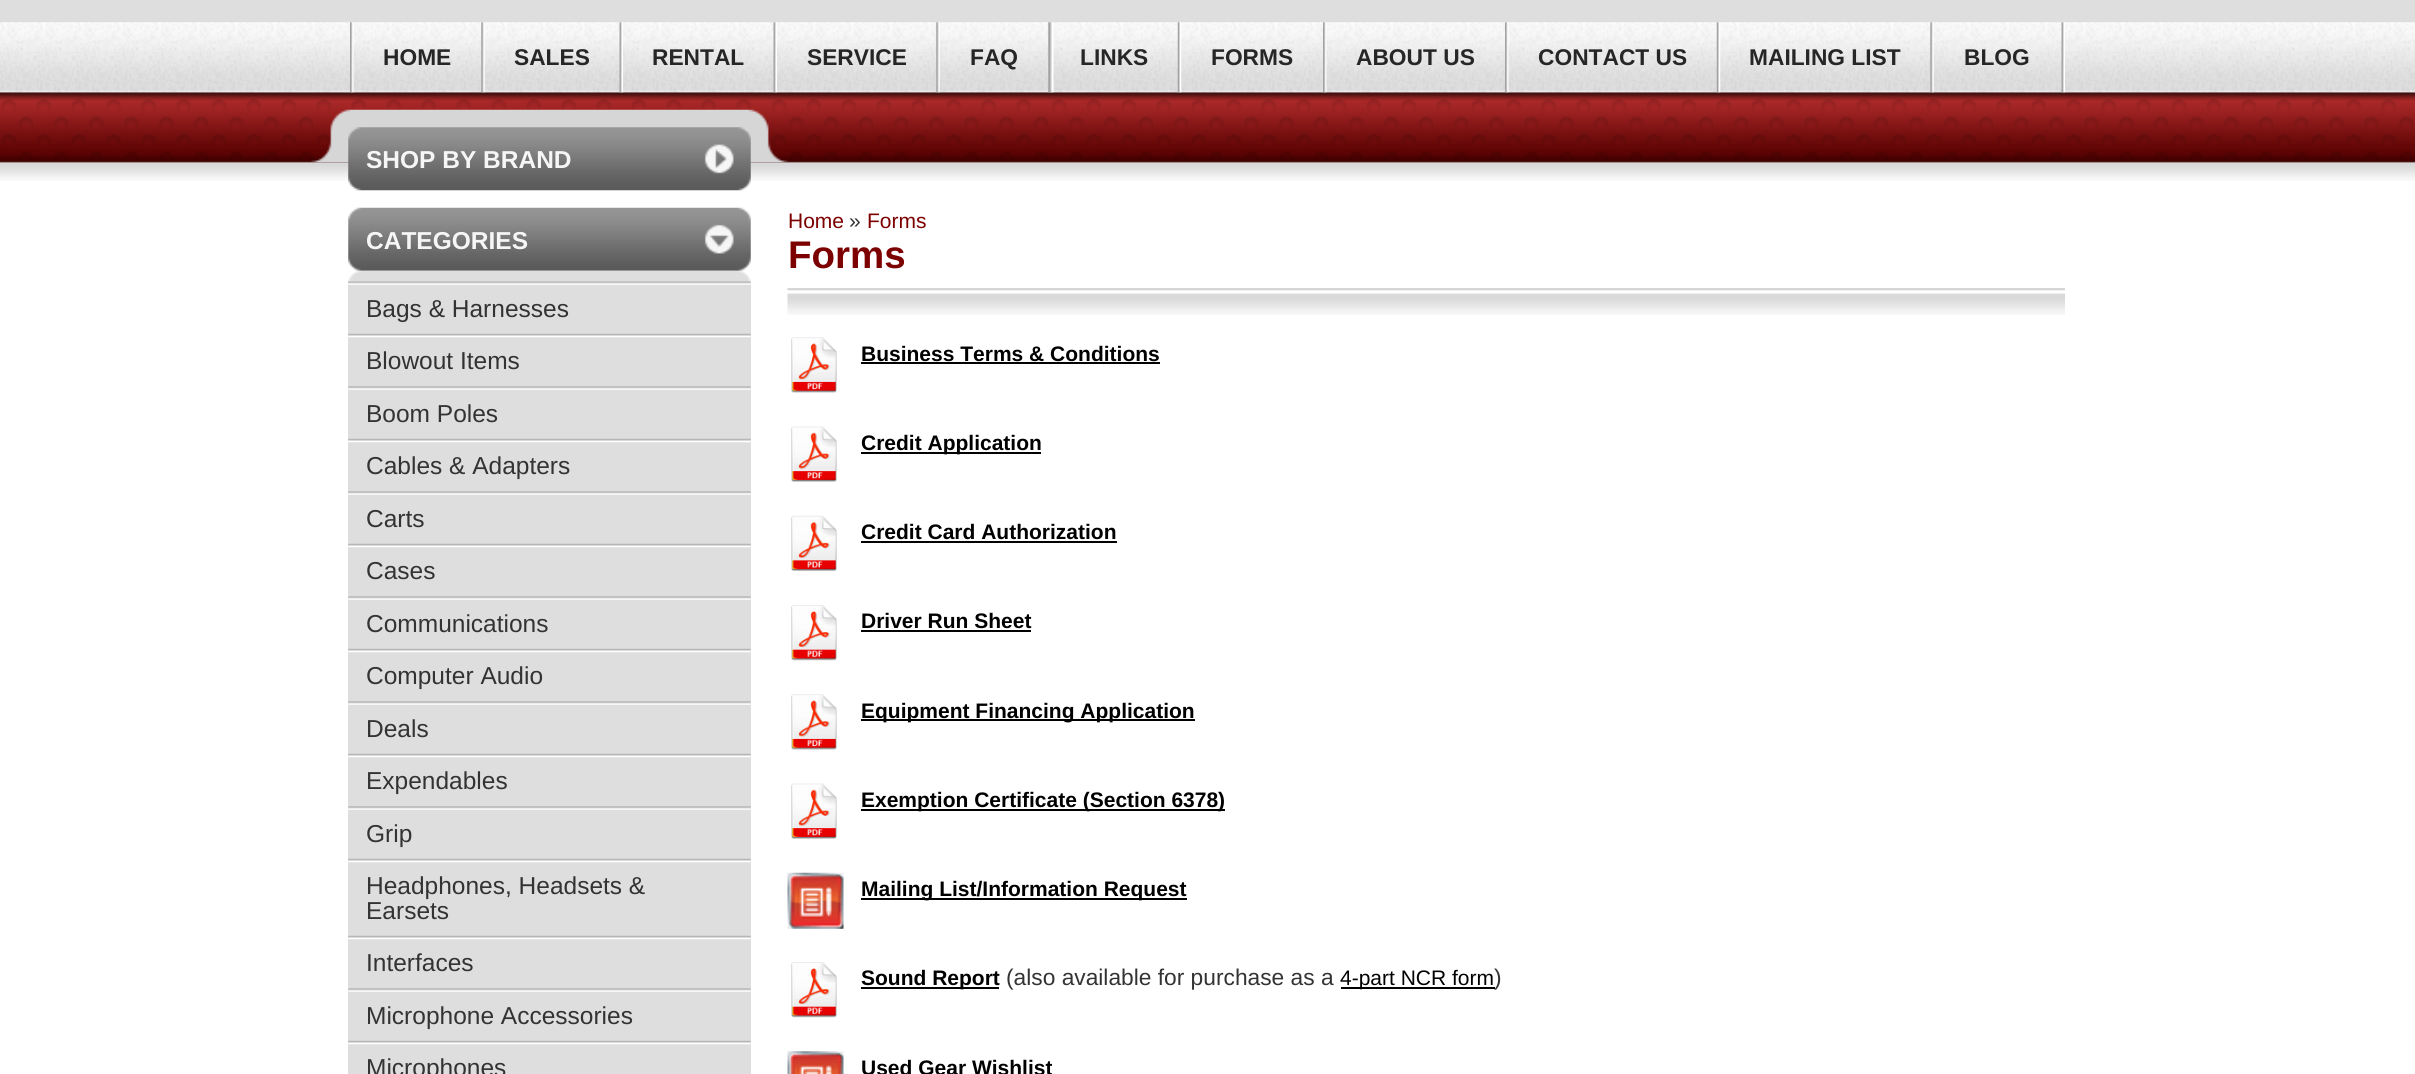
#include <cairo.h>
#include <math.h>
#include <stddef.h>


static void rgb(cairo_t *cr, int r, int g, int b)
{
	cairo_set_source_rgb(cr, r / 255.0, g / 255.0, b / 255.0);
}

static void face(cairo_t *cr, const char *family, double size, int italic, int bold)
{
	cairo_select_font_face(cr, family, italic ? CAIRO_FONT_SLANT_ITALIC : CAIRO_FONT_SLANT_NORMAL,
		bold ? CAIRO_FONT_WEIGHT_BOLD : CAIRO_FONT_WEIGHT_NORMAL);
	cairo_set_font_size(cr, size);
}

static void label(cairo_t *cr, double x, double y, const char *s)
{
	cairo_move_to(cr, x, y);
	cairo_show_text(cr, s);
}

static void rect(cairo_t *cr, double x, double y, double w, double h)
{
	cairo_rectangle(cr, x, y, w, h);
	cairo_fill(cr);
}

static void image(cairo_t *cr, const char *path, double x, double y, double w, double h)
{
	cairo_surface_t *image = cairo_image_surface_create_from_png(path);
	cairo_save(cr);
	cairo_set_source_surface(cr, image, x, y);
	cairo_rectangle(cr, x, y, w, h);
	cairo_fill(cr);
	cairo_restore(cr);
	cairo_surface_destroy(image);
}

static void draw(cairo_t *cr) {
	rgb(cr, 255, 255, 255);
	cairo_paint(cr);
	rgb(cr, 222, 222, 222);
	rect(cr, 0, 0, 2415, 23);
	image(cr, "image12.png", 0, 92, 2415, 89);
	image(cr, "image0.png", 0, 22, 2415, 78);
	image(cr, "image1.png", 2061, 22, 4, 71);
	image(cr, "image2.png", 350, 22, 4, 71);
	face(cr, "Liberation Sans", 22.75, 0, 1);
	rgb(cr, 38, 38, 38);
	label(cr, 383, 65, "HOME");
	image(cr, "image3.png", 481, 22, 4, 71);
	label(cr, 514, 65, "SALES");
	image(cr, "image4.png", 619, 22, 4, 71);
	label(cr, 652, 65, "RENTAL");
	image(cr, "image5.png", 773, 22, 4, 71);
	label(cr, 807, 65, "SERVICE");
	image(cr, "image6.png", 936, 22, 4, 71);
	label(cr, 970, 65, "FAQ");
	image(cr, "image7.png", 1048, 22, 6, 71);
	label(cr, 1080, 65, "LINKS");
	image(cr, "image8.png", 1177, 22, 5, 71);
	label(cr, 1211, 65, "FORMS");
	image(cr, "image9.png", 1323, 22, 4, 71);
	label(cr, 1356, 65, "ABOUT US");
	image(cr, "image2.png", 1505, 22, 4, 71);
	label(cr, 1538, 65, "CONTACT US");
	image(cr, "image10.png", 1716, 22, 5, 71);
	label(cr, 1749, 65, "MAILING LIST");
	image(cr, "image11.png", 1930, 22, 4, 71);
	label(cr, 1964, 65, "BLOG");
	image(cr, "image13.png", 311, 109, 477, 54);
	image(cr, "image14.png", 348, 127, 403, 64);
	face(cr, "Liberation Sans", 24.5, 0, 1);
	rgb(cr, 246, 246, 246);
	label(cr, 366, 168, "SHOP BY BRAND");
	image(cr, "image15.png", 348, 207, 403, 64);
	label(cr, 366, 249, "CATEGORIES");
	image(cr, "image16.png", 348, 270, 403, 12);
	rgb(cr, 222, 222, 222);
	rect(cr, 348, 282, 403, 792);
	image(cr, "image17.png", 348, 281, 403, 4);
	face(cr, "Liberation Sans", 24.5, 0, 0);
	rgb(cr, 51, 51, 51);
	label(cr, 366, 317, "Bags & Harnesses");
	image(cr, "image18.png", 348, 333, 403, 5);
	label(cr, 366, 369, "Blowout Items");
	image(cr, "image19.png", 348, 386, 403, 4);
	label(cr, 366, 422, "Boom Poles");
	image(cr, "image18.png", 348, 438, 403, 5);
	label(cr, 366, 474, "Cables & Adapters");
	image(cr, "image19.png", 348, 491, 403, 4);
	label(cr, 366, 527, "Carts");
	image(cr, "image18.png", 348, 543, 403, 5);
	label(cr, 366, 579, "Cases");
	image(cr, "image19.png", 348, 596, 403, 4);
	label(cr, 366, 632, "Communications");
	image(cr, "image18.png", 348, 648, 403, 5);
	label(cr, 366, 684, "Computer Audio");
	image(cr, "image19.png", 348, 701, 403, 4);
	label(cr, 366, 737, "Deals");
	image(cr, "image18.png", 348, 753, 403, 5);
	label(cr, 366, 789, "Expendables");
	image(cr, "image19.png", 348, 806, 403, 4);
	label(cr, 366, 842, "Grip");
	image(cr, "image18.png", 348, 858, 403, 5);
	label(cr, 366, 894, "Headphones, Headsets &");
	label(cr, 366, 919, "Earsets");
	image(cr, "image18.png", 348, 935, 403, 5);
	label(cr, 366, 971, "Interfaces");
	image(cr, "image19.png", 348, 988, 403, 4);
	label(cr, 366, 1024, "Microphone Accessories");
	image(cr, "image18.png", 348, 1040, 403, 5);
	label(cr, 366, 1076, "Microphones");
	face(cr, "Liberation Sans", 21, 0, 0);
	rgb(cr, 125, 0, 0);
	label(cr, 788, 228, "Home");
	rgb(cr, 51, 51, 51);
	label(cr, 849, 228, "»");
	rgb(cr, 125, 0, 0);
	label(cr, 867, 228, "Forms");
	image(cr, "image20.png", 787, 288, 1278, 27);
	face(cr, "Liberation Sans", 38.5, 0, 1);
	label(cr, 788, 268, "Forms");
	image(cr, "image21.png", 791, 337, 46, 56);
	face(cr, "Liberation Sans", 21, 0, 1);
	rgb(cr, 0, 0, 0);
	label(cr, 861, 361, "Business Terms & Conditions");
	rect(cr, 861, 362, 299, 2);
	image(cr, "image22.png", 791, 426, 46, 56);
	rect(cr, 861, 452, 180, 2);
	label(cr, 861, 450, "Credit Application");
	image(cr, "image23.png", 791, 515, 46, 56);
	label(cr, 861, 539, "Credit Card Authorization");
	rect(cr, 861, 541, 256, 2);
	image(cr, "image24.png", 791, 605, 46, 56);
	label(cr, 861, 628, "Driver Run Sheet");
	rect(cr, 861, 630, 170, 2);
	image(cr, "image21.png", 791, 694, 46, 56);
	rect(cr, 861, 719, 334, 2);
	label(cr, 861, 718, "Equipment Financing Application");
	image(cr, "image22.png", 791, 783, 46, 56);
	rect(cr, 861, 809, 364, 2);
	label(cr, 861, 807, "Exemption Certificate (Section 6378)");
	image(cr, "image25.png", 787, 872, 57, 57);
	rect(cr, 861, 898, 326, 2);
	label(cr, 861, 896, "Mailing List/Information Request");
	image(cr, "image24.png", 791, 962, 46, 56);
	rect(cr, 861, 987, 138, 2);
	label(cr, 861, 985, "Sound Report");
	face(cr, "Liberation Sans", 22.75, 0, 0);
	rgb(cr, 51, 51, 51);
	label(cr, 1006, 985, "(also available for purchase as a");
	rgb(cr, 0, 0, 0);
	rect(cr, 1341, 987, 154, 2);
	face(cr, "Liberation Sans", 21, 0, 0);
	label(cr, 1340, 985, "4-part NCR form");
	face(cr, "Liberation Sans", 22.75, 0, 0);
	rgb(cr, 51, 51, 51);
	label(cr, 1494, 985, ")");
	image(cr, "image26.png", 787, 1051, 57, 23);
	face(cr, "Liberation Sans", 21, 0, 1);
	rgb(cr, 0, 0, 0);
	label(cr, 861, 1075, "Used Gear Wishlist");
}

int main(void) {
	cairo_surface_t *surface = cairo_image_surface_create(CAIRO_FORMAT_RGB24, 2415, 1074);
	cairo_t *cr = cairo_create(surface);
	cairo_font_options_t *options = cairo_font_options_create();
	cairo_font_options_set_hint_metrics(options, CAIRO_HINT_METRICS_OFF);
	cairo_font_options_set_hint_style(options, CAIRO_HINT_STYLE_NONE);
	cairo_set_font_options(cr, options);
	cairo_set_miter_limit(cr, 4);
	draw(cr);
	cairo_surface_write_to_png(surface, "render.png");
	cairo_font_options_destroy(options);
	cairo_destroy(cr);
	cairo_surface_destroy(surface);
	return 0;
}
